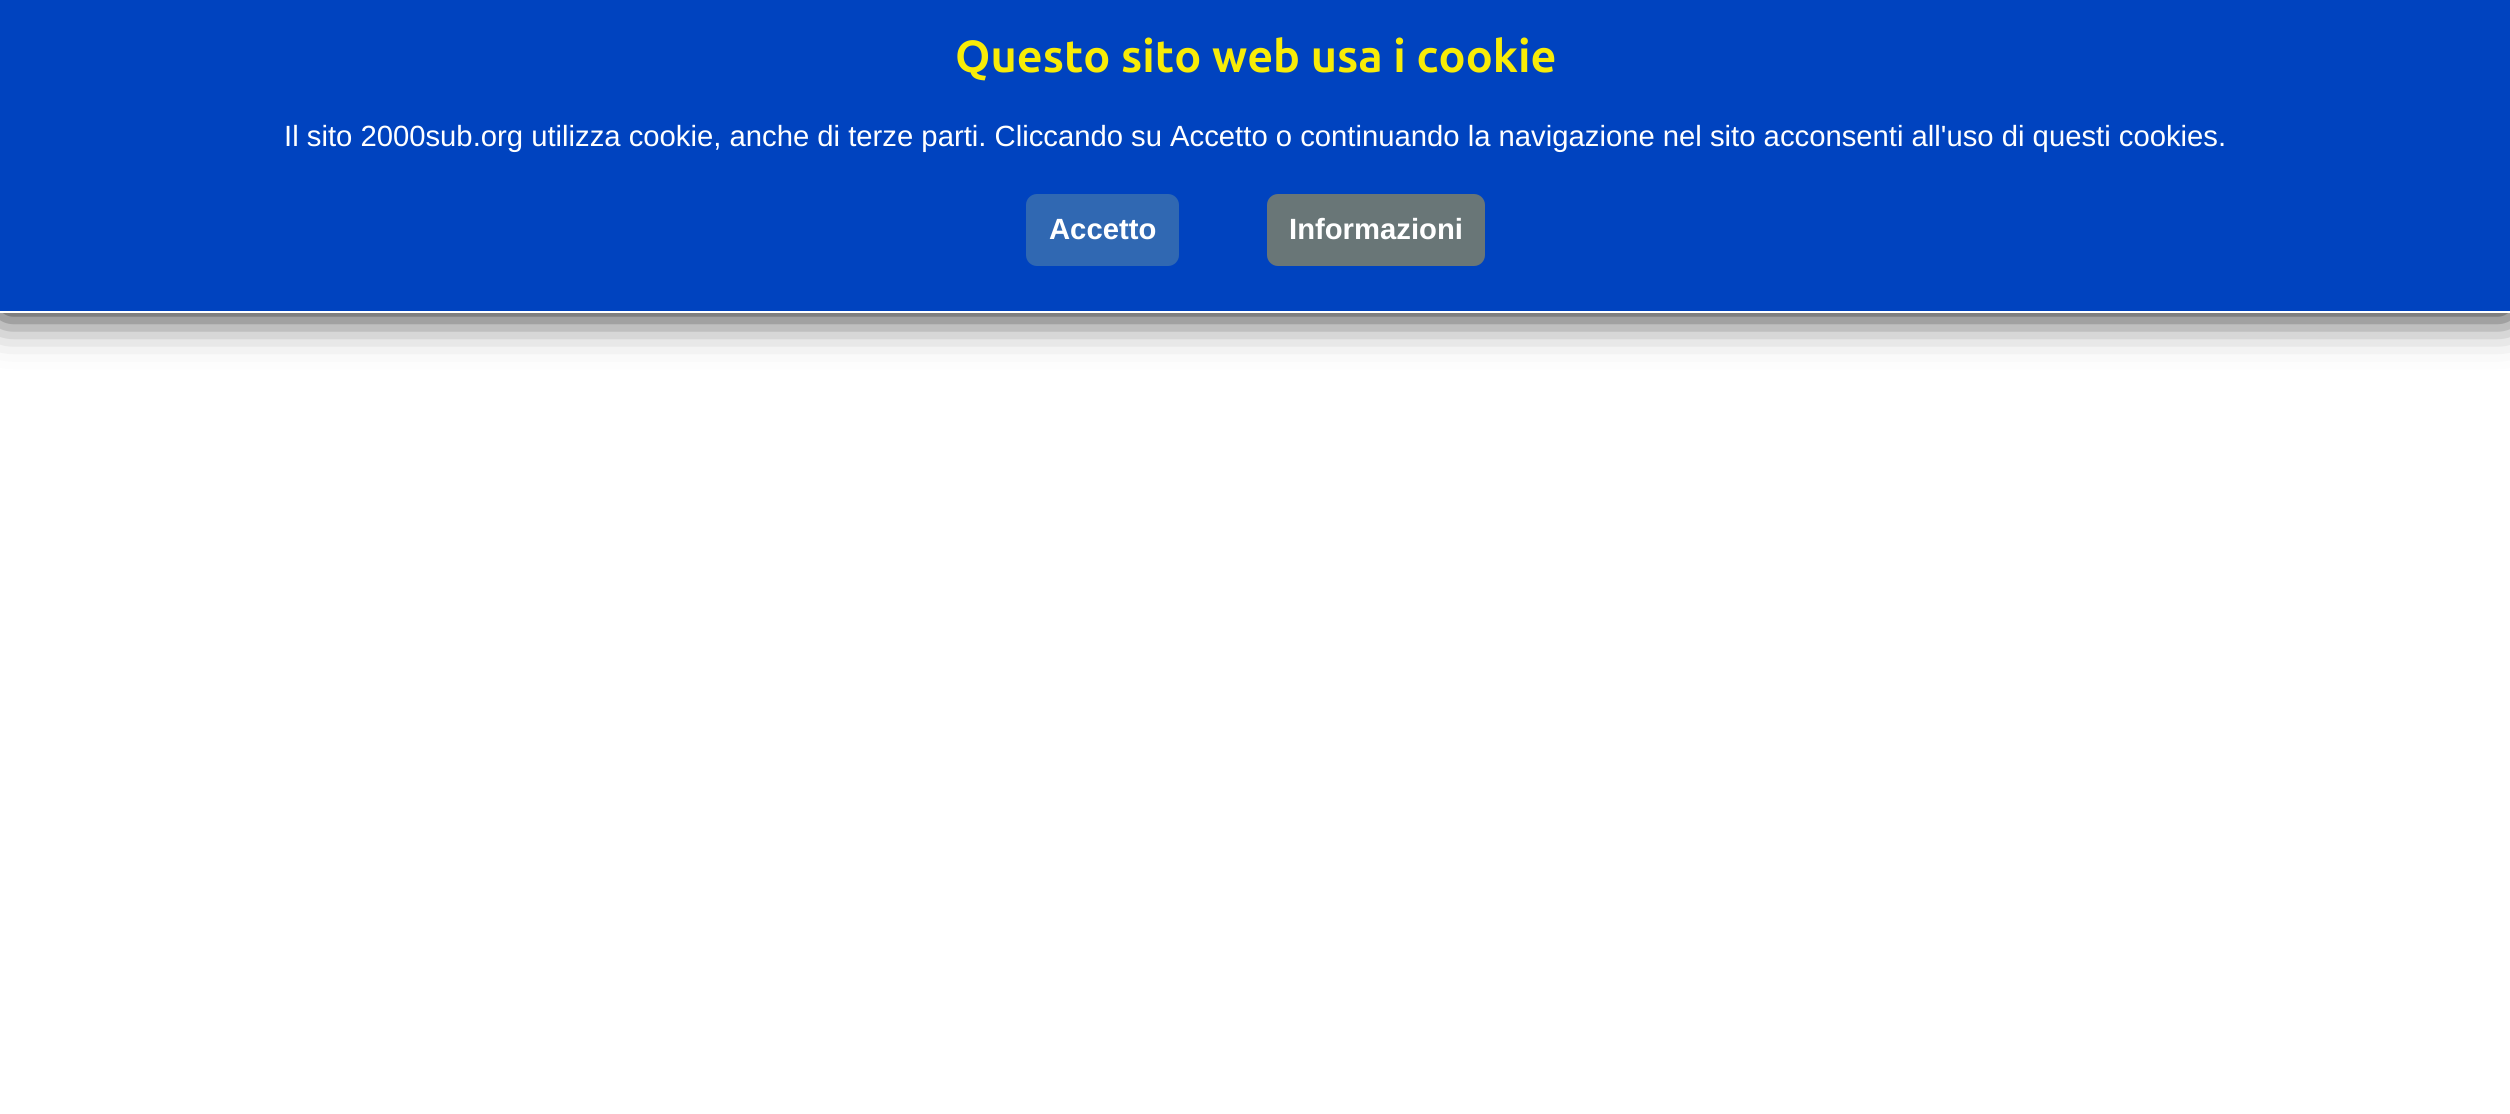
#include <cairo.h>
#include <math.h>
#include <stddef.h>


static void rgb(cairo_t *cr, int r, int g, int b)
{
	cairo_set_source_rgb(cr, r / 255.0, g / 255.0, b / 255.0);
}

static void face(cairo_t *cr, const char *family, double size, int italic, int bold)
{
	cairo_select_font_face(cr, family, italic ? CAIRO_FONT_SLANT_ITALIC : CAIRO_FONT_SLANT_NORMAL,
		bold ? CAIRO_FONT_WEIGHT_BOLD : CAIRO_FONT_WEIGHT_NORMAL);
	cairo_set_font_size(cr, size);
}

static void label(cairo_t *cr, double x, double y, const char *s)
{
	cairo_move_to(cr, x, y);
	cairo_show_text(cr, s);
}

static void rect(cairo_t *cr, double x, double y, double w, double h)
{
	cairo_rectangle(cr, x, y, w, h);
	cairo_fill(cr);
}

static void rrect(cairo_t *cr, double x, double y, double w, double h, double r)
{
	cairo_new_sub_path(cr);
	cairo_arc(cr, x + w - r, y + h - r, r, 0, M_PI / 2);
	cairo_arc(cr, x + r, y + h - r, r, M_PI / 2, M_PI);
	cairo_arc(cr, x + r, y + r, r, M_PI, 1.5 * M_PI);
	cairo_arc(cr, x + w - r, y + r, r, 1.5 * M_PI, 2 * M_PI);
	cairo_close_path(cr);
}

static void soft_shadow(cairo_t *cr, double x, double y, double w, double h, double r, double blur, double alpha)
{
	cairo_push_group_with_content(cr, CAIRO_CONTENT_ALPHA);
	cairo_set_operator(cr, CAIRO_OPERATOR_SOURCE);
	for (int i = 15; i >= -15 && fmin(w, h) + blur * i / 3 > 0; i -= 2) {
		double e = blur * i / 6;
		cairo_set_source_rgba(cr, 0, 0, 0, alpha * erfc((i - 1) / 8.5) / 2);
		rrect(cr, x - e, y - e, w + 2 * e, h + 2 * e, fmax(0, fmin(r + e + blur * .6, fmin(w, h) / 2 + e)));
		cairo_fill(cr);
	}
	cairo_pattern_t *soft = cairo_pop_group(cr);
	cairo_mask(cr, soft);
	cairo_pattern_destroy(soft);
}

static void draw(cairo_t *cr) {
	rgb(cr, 255, 255, 255);
	cairo_paint(cr);
	rgb(cr, 0, 0, 0);
	soft_shadow(cr, 0, 0, 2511, 313, 0, 22.5, 1);
	rgb(cr, 0, 67, 191);
	rect(cr, 0, 0, 2510, 311);
	rgb(cr, 255, 255, 255);
	rect(cr, 0, 311, 2510, 2);
	face(cr, "Ubuntu", 45, 0, 1);
	rgb(cr, 248, 236, 7);
	label(cr, 955, 72, "Questo sito web usa i cookie");
	face(cr, "Liberation Sans", 29.25, 0, 0);
	rgb(cr, 255, 255, 255);
	label(cr, 284, 146, "Il sito 2000sub.org utilizza cookie, anche di terze parti. Cliccando su Accetto o continuando la navigazione nel sito acconsenti all'uso di questi cookies.");
	rgb(cr, 48, 104, 178);
	rrect(cr, 1026, 194, 153, 72, 11);
	cairo_fill(cr);
	face(cr, "Liberation Sans", 29.25, 0, 1);
	rgb(cr, 255, 255, 255);
	label(cr, 1049, 239, "Accetto");
	rgb(cr, 105, 118, 119);
	rrect(cr, 1267, 194, 218, 72, 11);
	cairo_fill(cr);
	rgb(cr, 255, 255, 255);
	label(cr, 1289, 239, "Informazioni");
}

int main(void) {
	cairo_surface_t *surface = cairo_image_surface_create(CAIRO_FORMAT_RGB24, 2510, 1114);
	cairo_t *cr = cairo_create(surface);
	cairo_font_options_t *options = cairo_font_options_create();
	cairo_font_options_set_hint_metrics(options, CAIRO_HINT_METRICS_OFF);
	cairo_font_options_set_hint_style(options, CAIRO_HINT_STYLE_NONE);
	cairo_set_font_options(cr, options);
	cairo_set_miter_limit(cr, 4);
	draw(cr);
	cairo_surface_write_to_png(surface, "render.png");
	cairo_font_options_destroy(options);
	cairo_destroy(cr);
	cairo_surface_destroy(surface);
	return 0;
}
